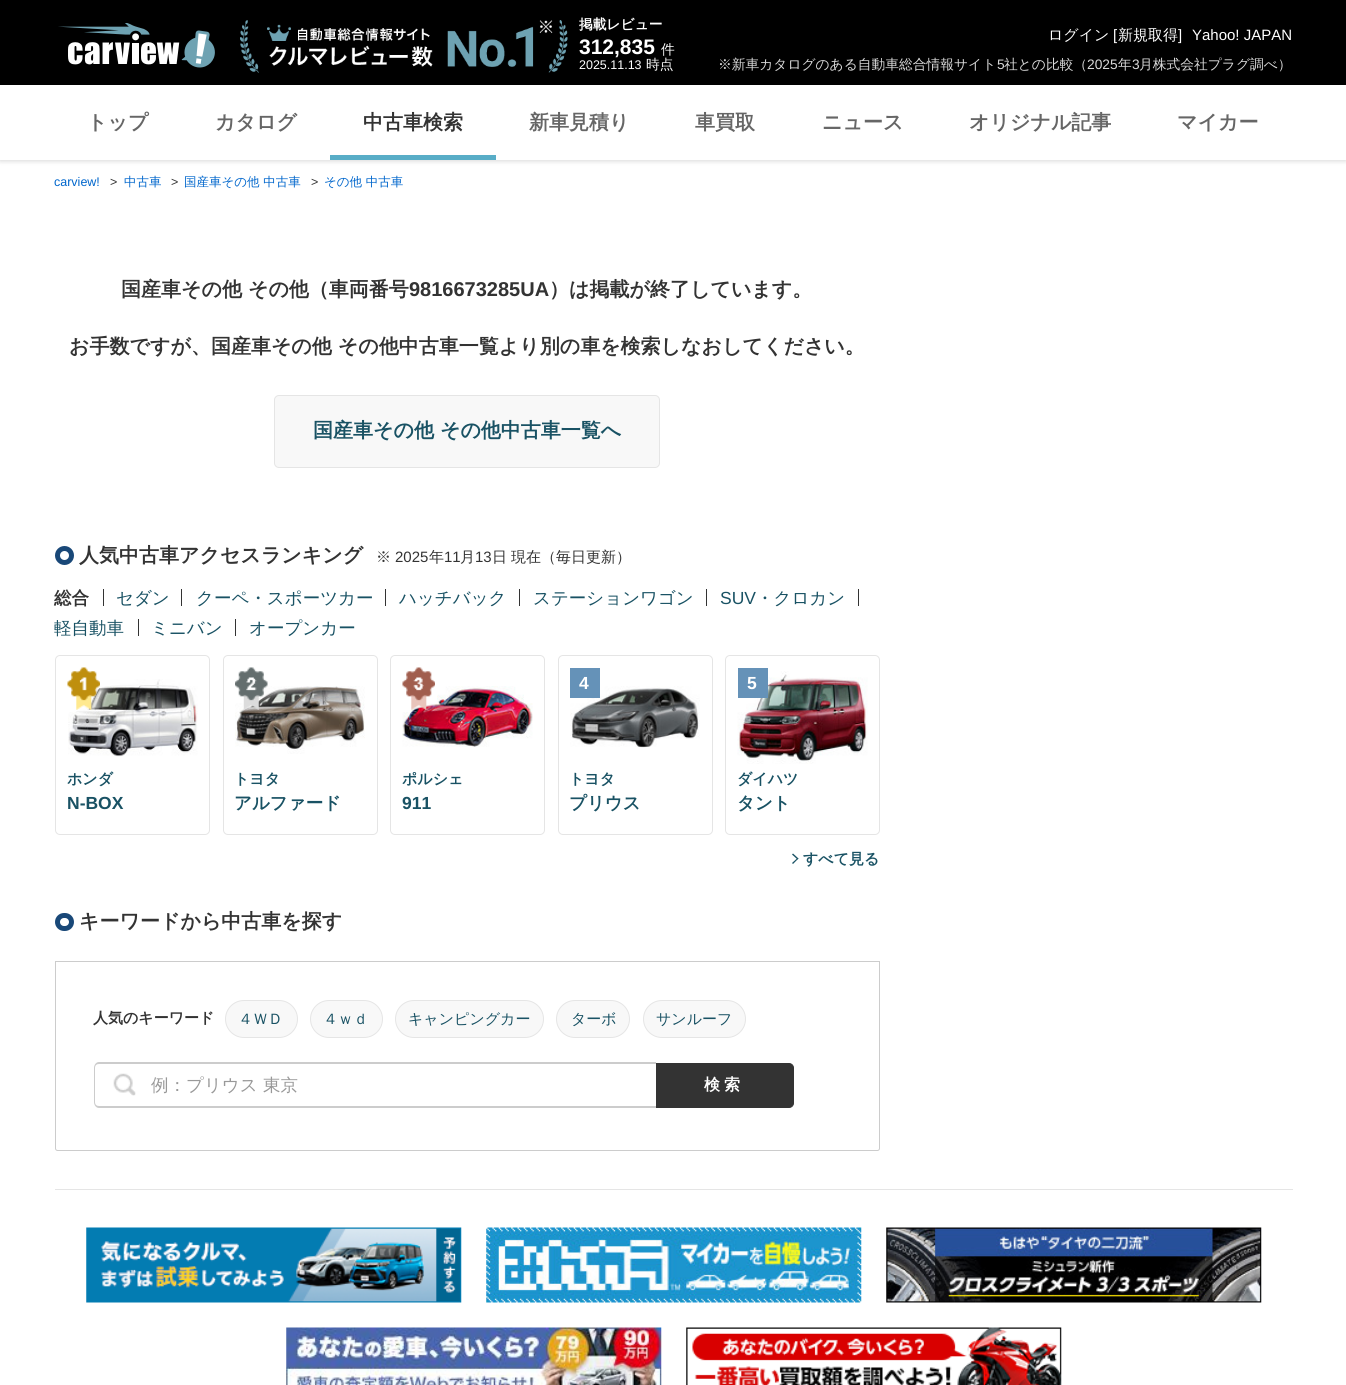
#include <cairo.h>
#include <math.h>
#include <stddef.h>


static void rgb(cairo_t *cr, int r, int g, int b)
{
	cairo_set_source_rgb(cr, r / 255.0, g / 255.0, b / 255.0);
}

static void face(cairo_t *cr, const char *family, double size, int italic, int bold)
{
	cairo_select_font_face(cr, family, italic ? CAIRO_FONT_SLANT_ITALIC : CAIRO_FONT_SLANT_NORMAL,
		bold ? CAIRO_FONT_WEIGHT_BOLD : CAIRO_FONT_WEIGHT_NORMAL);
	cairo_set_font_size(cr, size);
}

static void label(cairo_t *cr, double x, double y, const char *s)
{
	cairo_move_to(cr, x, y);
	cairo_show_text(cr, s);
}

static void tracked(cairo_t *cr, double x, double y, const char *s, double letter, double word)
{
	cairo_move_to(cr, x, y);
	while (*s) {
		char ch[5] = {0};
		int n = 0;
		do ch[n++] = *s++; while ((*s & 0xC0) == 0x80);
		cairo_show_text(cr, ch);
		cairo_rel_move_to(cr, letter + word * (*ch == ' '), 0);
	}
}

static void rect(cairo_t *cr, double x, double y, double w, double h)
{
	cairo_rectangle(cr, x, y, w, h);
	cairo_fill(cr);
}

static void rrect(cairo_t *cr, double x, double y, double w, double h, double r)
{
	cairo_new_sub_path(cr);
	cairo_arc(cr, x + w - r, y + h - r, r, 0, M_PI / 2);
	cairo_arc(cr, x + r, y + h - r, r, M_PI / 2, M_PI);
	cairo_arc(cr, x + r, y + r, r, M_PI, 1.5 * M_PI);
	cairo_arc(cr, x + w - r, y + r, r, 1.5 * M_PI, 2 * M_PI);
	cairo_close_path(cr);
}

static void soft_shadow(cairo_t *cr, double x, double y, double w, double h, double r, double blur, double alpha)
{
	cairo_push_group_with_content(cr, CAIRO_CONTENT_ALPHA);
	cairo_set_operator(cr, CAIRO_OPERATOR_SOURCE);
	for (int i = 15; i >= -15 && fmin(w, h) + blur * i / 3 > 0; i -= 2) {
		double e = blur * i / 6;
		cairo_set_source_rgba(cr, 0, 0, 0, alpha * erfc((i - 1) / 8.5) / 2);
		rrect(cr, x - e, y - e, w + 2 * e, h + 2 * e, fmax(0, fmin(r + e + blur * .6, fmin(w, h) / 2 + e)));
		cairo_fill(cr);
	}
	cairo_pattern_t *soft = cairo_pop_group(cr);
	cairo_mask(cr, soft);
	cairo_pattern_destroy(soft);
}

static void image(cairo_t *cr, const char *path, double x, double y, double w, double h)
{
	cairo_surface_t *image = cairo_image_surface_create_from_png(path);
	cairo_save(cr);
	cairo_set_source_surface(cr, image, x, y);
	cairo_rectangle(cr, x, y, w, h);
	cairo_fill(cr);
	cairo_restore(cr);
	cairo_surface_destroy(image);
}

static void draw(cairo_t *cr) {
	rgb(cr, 255, 255, 255);
	cairo_paint(cr);
	rgb(cr, 0, 0, 0);
	rect(cr, 0, 0, 1346, 85);
	image(cr, "image0.png", 58, 23, 157, 45);
	face(cr, "WenQuanYi Zen Hei", 13.75, 0, 1);
	rgb(cr, 255, 255, 255);
	label(cr, 579, 29, "掲載レビュー");
	face(cr, "Liberation Sans", 21, 0, 1);
	label(cr, 579, 54, "312,835");
	face(cr, "WenQuanYi Zen Hei Medium", 13.75, 0, 0);
	label(cr, 661, 54, "件");
	face(cr, "Liberation Sans", 12.5, 0, 0);
	label(cr, 579, 69, "2025.11.13");
	face(cr, "WenQuanYi Zen Hei Medium", 13.75, 0, 0);
	label(cr, 646, 69, "時点");
	face(cr, "WenQuanYi Zen Hei Medium", 15, 0, 0);
	label(cr, 1048, 40, "ログイン");
	face(cr, "Liberation Sans", 15, 0, 0);
	label(cr, 1113, 40, "[");
	face(cr, "WenQuanYi Zen Hei Medium", 15, 0, 0);
	label(cr, 1118, 40, "新規取得");
	face(cr, "Liberation Sans", 15, 0, 0);
	label(cr, 1178, 40, "]");
	label(cr, 1192, 40, "Yahoo! JAPAN");
	image(cr, "image1.png", 240, 20, 328, 53);
	face(cr, "WenQuanYi Zen Hei Medium", 13.75, 0, 0);
	rgb(cr, 217, 217, 217);
	label(cr, 718, 69, "※新車カタログのある自動車総合情報サイト");
	face(cr, "Liberation Sans", 13.75, 0, 0);
	label(cr, 997, 69, "5");
	face(cr, "WenQuanYi Zen Hei Medium", 13.75, 0, 0);
	label(cr, 1004, 69, "社との比較（");
	face(cr, "Liberation Sans", 13.75, 0, 0);
	label(cr, 1087, 69, "2025");
	face(cr, "WenQuanYi Zen Hei Medium", 13.75, 0, 0);
	label(cr, 1118, 69, "年");
	face(cr, "Liberation Sans", 13.75, 0, 0);
	label(cr, 1132, 69, "3");
	face(cr, "WenQuanYi Zen Hei Medium", 13.75, 0, 0);
	label(cr, 1139, 69, "月株式会社プラグ調べ）");
	cairo_save(cr);
	cairo_set_fill_rule(cr, CAIRO_FILL_RULE_EVEN_ODD);
	cairo_new_path(cr);
	cairo_move_to(cr, 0, 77);
	cairo_line_to(cr, 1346, 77);
	cairo_line_to(cr, 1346, 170);
	cairo_line_to(cr, 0, 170);
	cairo_close_path(cr);
	cairo_move_to(cr, 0, 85);
	cairo_line_to(cr, 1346, 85);
	cairo_line_to(cr, 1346, 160);
	cairo_line_to(cr, 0, 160);
	cairo_close_path(cr);
	cairo_clip(cr);
	rgb(cr, 0, 0, 0);
	soft_shadow(cr, 0, 86, 1346, 75, 0, 2.5, 0.16);
	cairo_restore(cr);
	face(cr, "WenQuanYi Zen Hei", 20, 0, 1);
	rgb(cr, 102, 102, 102);
	label(cr, 87, 129, "トップ");
	label(cr, 215, 129, "カタログ");
	rgb(cr, 88, 173, 199);
	rect(cr, 330, 155, 166, 5);
	rgb(cr, 51, 51, 51);
	label(cr, 363, 129, "中古車検索");
	rgb(cr, 102, 102, 102);
	label(cr, 529, 129, "新車見積り");
	label(cr, 695, 129, "車買取");
	label(cr, 822, 129, "ニュース");
	label(cr, 969, 129, "オリジナル記事");
	label(cr, 1177, 129, "マイカー");
	face(cr, "Liberation Sans", 12.5, 0, 0);
	rgb(cr, 0, 102, 204);
	label(cr, 54, 186, "carview!");
	rgb(cr, 51, 51, 51);
	label(cr, 110, 186, ">");
	face(cr, "WenQuanYi Zen Hei Medium", 12.5, 0, 0);
	rgb(cr, 0, 102, 204);
	label(cr, 124, 186, "中古車");
	face(cr, "Liberation Sans", 12.5, 0, 0);
	rgb(cr, 51, 51, 51);
	label(cr, 171, 186, ">");
	face(cr, "WenQuanYi Zen Hei Medium", 12.5, 0, 0);
	rgb(cr, 0, 102, 204);
	label(cr, 184, 186, "国産車その他 中古車");
	face(cr, "Liberation Sans", 12.5, 0, 0);
	rgb(cr, 51, 51, 51);
	label(cr, 311, 186, ">");
	face(cr, "WenQuanYi Zen Hei Medium", 12.5, 0, 0);
	rgb(cr, 0, 102, 204);
	label(cr, 324, 186, "その他 中古車");
	face(cr, "WenQuanYi Zen Hei", 20, 0, 1);
	rgb(cr, 51, 51, 51);
	label(cr, 121, 296, "国産車その他 その他（車両番号");
	face(cr, "Liberation Sans", 20, 0, 1);
	label(cr, 409, 296, "9816673285UA");
	face(cr, "WenQuanYi Zen Hei", 20, 0, 1);
	label(cr, 549, 296, "）は掲載が終了しています。");
	label(cr, 69, 353, "お手数ですが、国産車その他 その他中古車一覧より別の車を検索しなおしてください。");
	rgb(cr, 248, 248, 248);
	rrect(cr, 274.5, 395.5, 385, 72, 4.5);
	cairo_fill_preserve(cr);
	rgb(cr, 229, 229, 229);
	cairo_set_line_width(cr, 1);
	cairo_stroke(cr);
	rgb(cr, 25, 82, 100);
	label(cr, 313, 437, "国産車その他 その他中古車一覧へ");
	cairo_new_path(cr);
	cairo_arc(cr, 64.5, 555.5, 7, 0, 2 * M_PI);
	rgb(cr, 25, 72, 120);
	cairo_set_line_width(cr, 5);
	cairo_stroke(cr);
	rgb(cr, 51, 51, 51);
	label(cr, 79, 562, "人気中古車アクセスランキング");
	face(cr, "WenQuanYi Zen Hei Medium", 15, 0, 0);
	label(cr, 376, 562, "※");
	face(cr, "Liberation Sans", 15, 0, 0);
	label(cr, 395, 562, "2025");
	face(cr, "WenQuanYi Zen Hei Medium", 15, 0, 0);
	label(cr, 429, 562, "年");
	face(cr, "Liberation Sans", 15, 0, 0);
	label(cr, 444, 562, "11");
	face(cr, "WenQuanYi Zen Hei Medium", 15, 0, 0);
	label(cr, 460, 562, "月");
	face(cr, "Liberation Sans", 15, 0, 0);
	label(cr, 475, 562, "13");
	face(cr, "WenQuanYi Zen Hei Medium", 15, 0, 0);
	label(cr, 492, 562, "日");
	label(cr, 511, 562, "現在（毎日更新）");
	rect(cr, 103, 589, 1, 17);
	face(cr, "WenQuanYi Zen Hei", 17.5, 0, 1);
	label(cr, 54, 604, "総合");
	rect(cr, 181, 589, 1, 17);
	face(cr, "WenQuanYi Zen Hei Medium", 17.5, 0, 0);
	rgb(cr, 25, 82, 100);
	label(cr, 116, 604, "セダン");
	rgb(cr, 51, 51, 51);
	rect(cr, 385, 589, 1, 17);
	rgb(cr, 25, 82, 100);
	label(cr, 196, 604, "クーペ・スポーツカー");
	rgb(cr, 51, 51, 51);
	rect(cr, 519, 589, 1, 17);
	rgb(cr, 25, 82, 100);
	label(cr, 399, 604, "ハッチバック");
	rgb(cr, 51, 51, 51);
	rect(cr, 706, 589, 1, 17);
	rgb(cr, 25, 82, 100);
	label(cr, 533, 604, "ステーションワゴン");
	rgb(cr, 51, 51, 51);
	rect(cr, 858, 589, 1, 17);
	face(cr, "Liberation Sans", 17.5, 0, 0);
	rgb(cr, 25, 82, 100);
	label(cr, 720, 604, "SUV");
	face(cr, "WenQuanYi Zen Hei Medium", 17.5, 0, 0);
	label(cr, 756, 604, "・クロカン");
	rgb(cr, 51, 51, 51);
	rect(cr, 138, 619, 1, 17);
	rgb(cr, 25, 82, 100);
	label(cr, 54, 634, "軽自動車");
	rgb(cr, 51, 51, 51);
	rect(cr, 235, 619, 1, 17);
	rgb(cr, 25, 82, 100);
	label(cr, 151, 634, "ミニバン");
	label(cr, 249, 634, "オープンカー");
	image(cr, "image3.png", 68, 679, 130, 78);
	image(cr, "image2.png", 67, 667, 33, 43);
	rrect(cr, 55.5, 655.5, 154, 179, 4.5);
	rgb(cr, 229, 229, 229);
	cairo_set_line_width(cr, 1);
	cairo_stroke(cr);
	face(cr, "WenQuanYi Zen Hei", 15, 0, 1);
	rgb(cr, 25, 82, 100);
	label(cr, 67, 784, "ホンダ");
	face(cr, "Liberation Sans", 17.5, 0, 1);
	label(cr, 67, 809, "N-BOX");
	image(cr, "image5.png", 235, 686, 130, 68);
	image(cr, "image4.png", 235, 667, 33, 43);
	rrect(cr, 223.5, 655.5, 154, 179, 4.5);
	rgb(cr, 229, 229, 229);
	cairo_stroke(cr);
	face(cr, "WenQuanYi Zen Hei", 15, 0, 1);
	rgb(cr, 25, 82, 100);
	label(cr, 234, 784, "トヨタ");
	face(cr, "WenQuanYi Zen Hei", 17.5, 0, 1);
	label(cr, 234, 809, "アルファード");
	image(cr, "image7.png", 402, 686, 131, 61);
	image(cr, "image6.png", 402, 667, 33, 43);
	rrect(cr, 390.5, 655.5, 154, 179, 4.5);
	rgb(cr, 229, 229, 229);
	cairo_stroke(cr);
	face(cr, "WenQuanYi Zen Hei", 15, 0, 1);
	rgb(cr, 25, 82, 100);
	label(cr, 402, 784, "ポルシェ");
	face(cr, "Liberation Sans", 17.5, 0, 1);
	label(cr, 402, 809, "911");
	image(cr, "image8.png", 570, 686, 130, 62);
	rgb(cr, 101, 146, 184);
	rect(cr, 570, 668, 30, 30);
	rrect(cr, 558.5, 655.5, 154, 179, 4.5);
	rgb(cr, 229, 229, 229);
	cairo_stroke(cr);
	rgb(cr, 255, 255, 255);
	label(cr, 579, 689, "4");
	face(cr, "WenQuanYi Zen Hei", 15, 0, 1);
	rgb(cr, 25, 82, 100);
	label(cr, 569, 784, "トヨタ");
	face(cr, "WenQuanYi Zen Hei", 17.5, 0, 1);
	label(cr, 569, 809, "プリウス");
	image(cr, "image9.png", 737, 671, 131, 93);
	rgb(cr, 101, 146, 184);
	rect(cr, 738, 668, 30, 30);
	rrect(cr, 725.5, 655.5, 154, 179, 4.5);
	rgb(cr, 229, 229, 229);
	cairo_stroke(cr);
	face(cr, "Liberation Sans", 17.5, 0, 1);
	rgb(cr, 255, 255, 255);
	label(cr, 747, 689, "5");
	face(cr, "WenQuanYi Zen Hei", 15, 0, 1);
	rgb(cr, 25, 82, 100);
	label(cr, 737, 784, "ダイハツ");
	face(cr, "WenQuanYi Zen Hei", 17.5, 0, 1);
	label(cr, 737, 809, "タント");
	cairo_new_path(cr);
	cairo_move_to(cr, 793, 853.5);
	cairo_line_to(cr, 798.5, 858.5);
	cairo_line_to(cr, 797.5, 859.5);
	cairo_line_to(cr, 792, 854.5);
	cairo_close_path(cr);
	cairo_fill(cr);
	cairo_new_path(cr);
	cairo_move_to(cr, 797.5, 858);
	cairo_line_to(cr, 798.5, 858.5);
	cairo_line_to(cr, 793, 864);
	cairo_line_to(cr, 792, 863);
	cairo_close_path(cr);
	cairo_fill(cr);
	face(cr, "WenQuanYi Zen Hei", 15, 0, 1);
	label(cr, 803, 864, "すべて見る");
	rrect(cr, 57.5, 915.5, 14, 13, 6.5);
	rgb(cr, 25, 72, 120);
	cairo_set_line_width(cr, 5);
	cairo_stroke(cr);
	face(cr, "WenQuanYi Zen Hei", 20, 0, 1);
	rgb(cr, 51, 51, 51);
	label(cr, 79, 928, "キーワードから中古車を探す");
	cairo_new_path(cr);
	cairo_move_to(cr, 55.5, 961.5);
	cairo_line_to(cr, 879.5, 961.5);
	cairo_line_to(cr, 879.5, 1148.5);
	cairo_curve_to(cr, 879.5, 1149.5, 878.5, 1150.5, 877.5, 1150.5);
	cairo_line_to(cr, 57.5, 1150.5);
	cairo_curve_to(cr, 56.5, 1150.5, 55.5, 1149.5, 55.5, 1148.5);
	cairo_close_path(cr);
	rgb(cr, 204, 204, 204);
	cairo_set_line_width(cr, 1);
	cairo_stroke(cr);
	face(cr, "WenQuanYi Zen Hei", 15, 0, 1);
	rgb(cr, 51, 51, 51);
	label(cr, 93, 1023, "人気のキーワード");
	rgb(cr, 248, 248, 248);
	rrect(cr, 225.5, 1000.5, 72, 37, 18.5);
	cairo_fill_preserve(cr);
	rgb(cr, 229, 229, 229);
	cairo_stroke(cr);
	face(cr, "WenQuanYi Zen Hei Medium", 15, 0, 0);
	rgb(cr, 25, 82, 100);
	label(cr, 238, 1024, "４ＷＤ");
	rgb(cr, 248, 248, 248);
	rrect(cr, 310.5, 1000.5, 72, 37, 18.5);
	cairo_fill_preserve(cr);
	rgb(cr, 229, 229, 229);
	cairo_stroke(cr);
	rgb(cr, 25, 82, 100);
	label(cr, 323, 1024, "４ｗｄ");
	rgb(cr, 248, 248, 248);
	rrect(cr, 395.5, 1000.5, 148, 37, 18.5);
	cairo_fill_preserve(cr);
	rgb(cr, 229, 229, 229);
	cairo_stroke(cr);
	rgb(cr, 25, 82, 100);
	label(cr, 408, 1024, "キャンピングカー");
	rgb(cr, 248, 248, 248);
	rrect(cr, 556.5, 1000.5, 73, 37, 18.5);
	cairo_fill_preserve(cr);
	rgb(cr, 229, 229, 229);
	cairo_stroke(cr);
	rgb(cr, 25, 82, 100);
	label(cr, 571, 1024, "ターボ");
	rgb(cr, 248, 248, 248);
	rrect(cr, 643.5, 1000.5, 102, 37, 18.5);
	cairo_fill_preserve(cr);
	rgb(cr, 229, 229, 229);
	cairo_stroke(cr);
	rgb(cr, 25, 82, 100);
	label(cr, 656, 1024, "サンルーフ");
	image(cr, "image10.png", 113, 1073, 23, 23);
	rgb(cr, 204, 204, 204);
	cairo_set_fill_rule(cr, CAIRO_FILL_RULE_EVEN_ODD);
	cairo_new_path(cr);
	cairo_move_to(cr, 99, 1062);
	cairo_line_to(cr, 656, 1062);
	cairo_line_to(cr, 656, 1108);
	cairo_line_to(cr, 99, 1108);
	cairo_curve_to(cr, 96, 1108, 94, 1105, 94, 1102);
	cairo_line_to(cr, 94, 1068);
	cairo_curve_to(cr, 94, 1065, 96, 1062, 99, 1062);
	cairo_close_path(cr);
	cairo_move_to(cr, 99, 1064);
	cairo_line_to(cr, 656, 1064);
	cairo_line_to(cr, 656, 1106);
	cairo_line_to(cr, 99, 1106);
	cairo_curve_to(cr, 97, 1106, 95, 1105, 95, 1102);
	cairo_line_to(cr, 95, 1068);
	cairo_curve_to(cr, 95, 1065, 97, 1064, 99, 1064);
	cairo_close_path(cr);
	cairo_fill(cr);
	face(cr, "WenQuanYi Zen Hei Medium", 17.5, 0, 0);
	rgb(cr, 153, 153, 153);
	label(cr, 151, 1091, "例：プリウス 東京");
	rgb(cr, 51, 51, 51);
	cairo_new_path(cr);
	cairo_move_to(cr, 656.5, 1063.5);
	cairo_line_to(cr, 789, 1063.5);
	cairo_curve_to(cr, 791.5, 1063.5, 793.5, 1065.5, 793.5, 1068);
	cairo_line_to(cr, 793.5, 1103);
	cairo_curve_to(cr, 793.5, 1105.5, 791.5, 1107.5, 789, 1107.5);
	cairo_line_to(cr, 656.5, 1107.5);
	cairo_close_path(cr);
	cairo_fill_preserve(cr);
	cairo_stroke(cr);
	face(cr, "WenQuanYi Zen Hei", 16, 0, 1);
	rgb(cr, 255, 255, 255);
	tracked(cr, 704, 1090, "検索", 4, 0);
	rgb(cr, 229, 229, 229);
	rect(cr, 55, 1189, 1238, 1);
	image(cr, "image11.png", 86, 1227, 376, 76);
	image(cr, "image12.png", 486, 1227, 376, 76);
	image(cr, "image13.png", 886, 1227, 376, 76);
	image(cr, "image14.png", 286, 1327, 376, 58);
	image(cr, "image15.png", 686, 1327, 376, 58);
}

int main(void) {
	cairo_surface_t *surface = cairo_image_surface_create(CAIRO_FORMAT_RGB24, 1346, 1385);
	cairo_t *cr = cairo_create(surface);
	cairo_font_options_t *options = cairo_font_options_create();
	cairo_font_options_set_hint_metrics(options, CAIRO_HINT_METRICS_OFF);
	cairo_font_options_set_hint_style(options, CAIRO_HINT_STYLE_NONE);
	cairo_set_font_options(cr, options);
	cairo_set_miter_limit(cr, 4);
	draw(cr);
	cairo_surface_write_to_png(surface, "render.png");
	cairo_font_options_destroy(options);
	cairo_destroy(cr);
	cairo_surface_destroy(surface);
	return 0;
}
